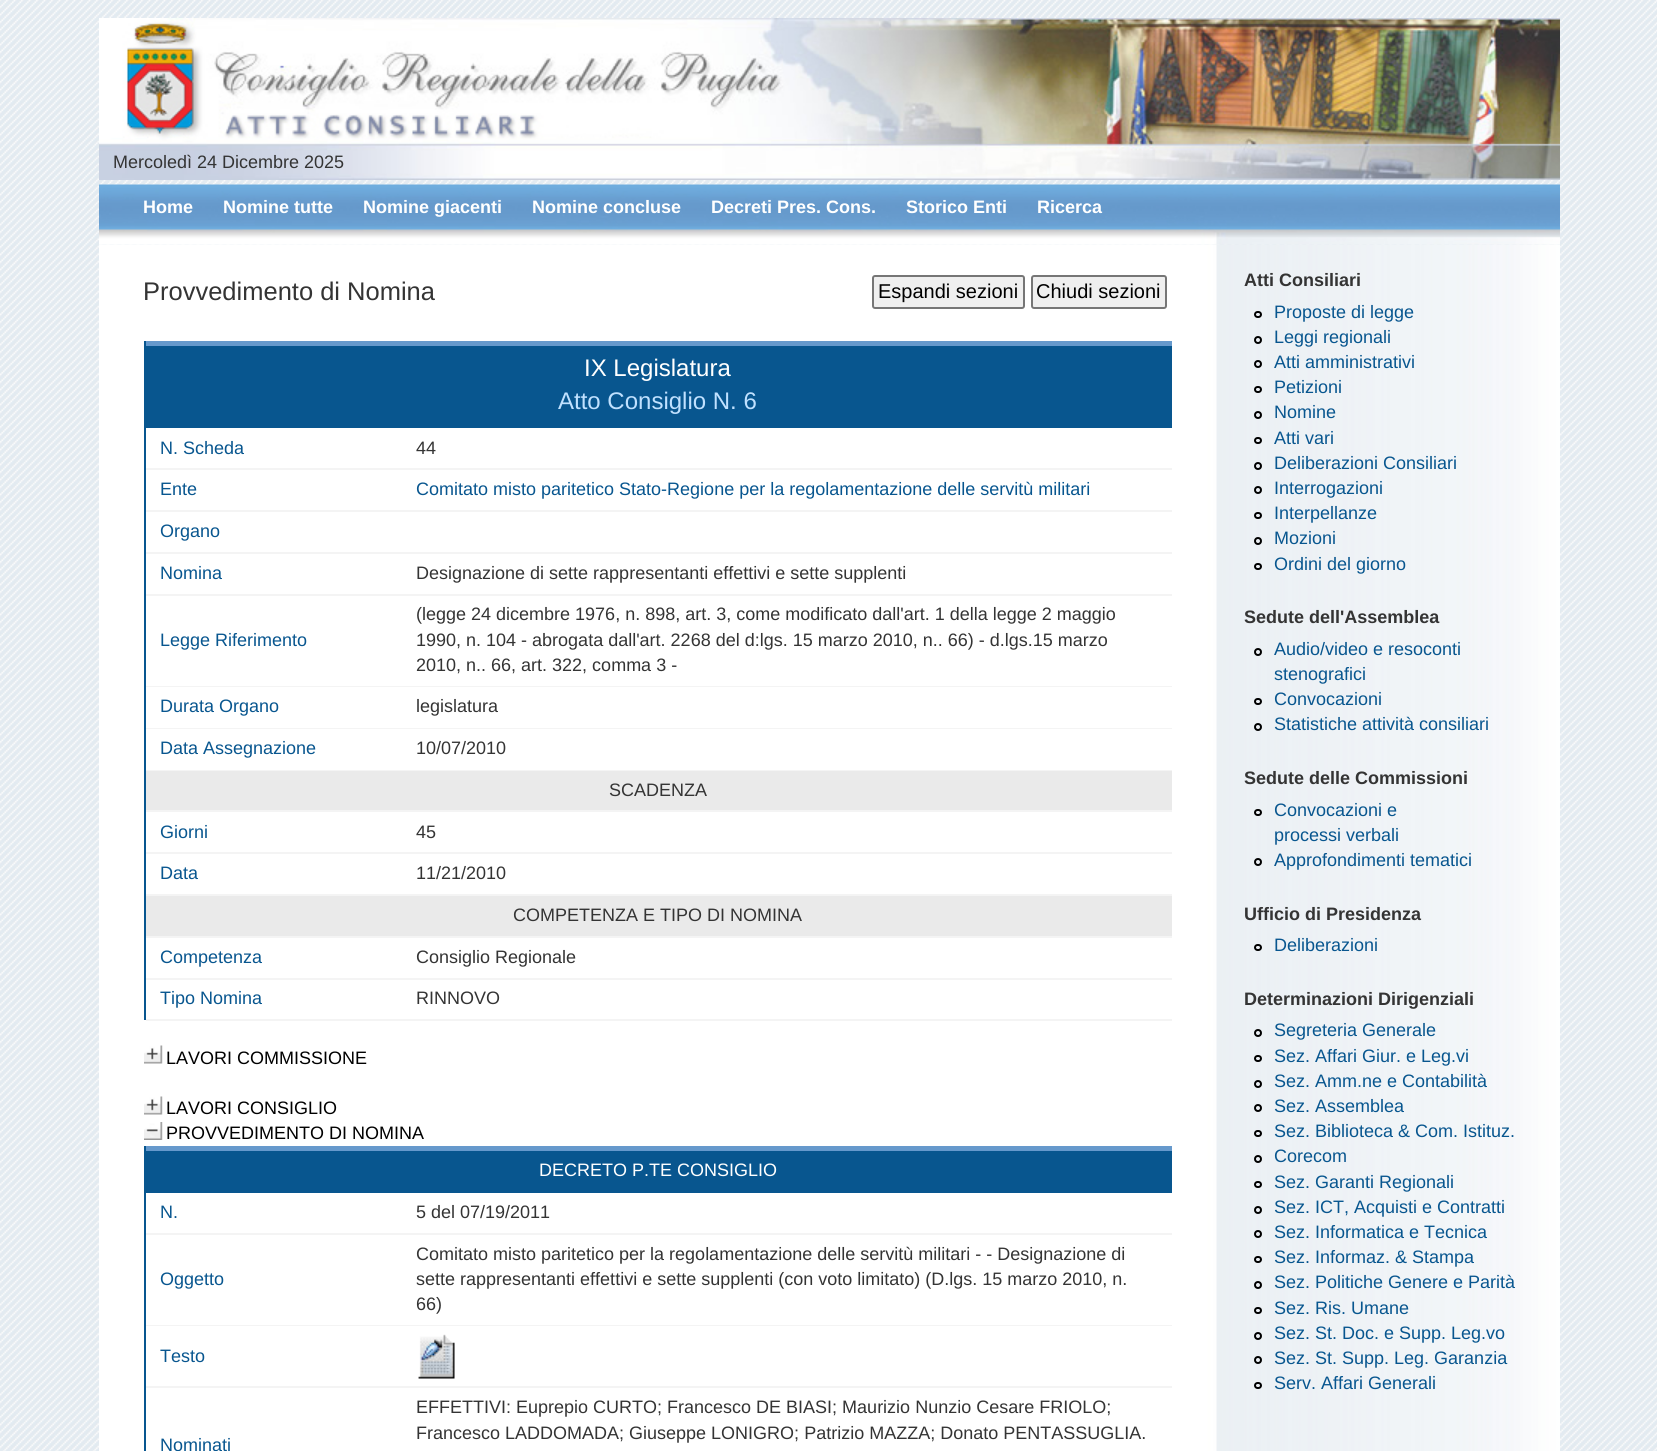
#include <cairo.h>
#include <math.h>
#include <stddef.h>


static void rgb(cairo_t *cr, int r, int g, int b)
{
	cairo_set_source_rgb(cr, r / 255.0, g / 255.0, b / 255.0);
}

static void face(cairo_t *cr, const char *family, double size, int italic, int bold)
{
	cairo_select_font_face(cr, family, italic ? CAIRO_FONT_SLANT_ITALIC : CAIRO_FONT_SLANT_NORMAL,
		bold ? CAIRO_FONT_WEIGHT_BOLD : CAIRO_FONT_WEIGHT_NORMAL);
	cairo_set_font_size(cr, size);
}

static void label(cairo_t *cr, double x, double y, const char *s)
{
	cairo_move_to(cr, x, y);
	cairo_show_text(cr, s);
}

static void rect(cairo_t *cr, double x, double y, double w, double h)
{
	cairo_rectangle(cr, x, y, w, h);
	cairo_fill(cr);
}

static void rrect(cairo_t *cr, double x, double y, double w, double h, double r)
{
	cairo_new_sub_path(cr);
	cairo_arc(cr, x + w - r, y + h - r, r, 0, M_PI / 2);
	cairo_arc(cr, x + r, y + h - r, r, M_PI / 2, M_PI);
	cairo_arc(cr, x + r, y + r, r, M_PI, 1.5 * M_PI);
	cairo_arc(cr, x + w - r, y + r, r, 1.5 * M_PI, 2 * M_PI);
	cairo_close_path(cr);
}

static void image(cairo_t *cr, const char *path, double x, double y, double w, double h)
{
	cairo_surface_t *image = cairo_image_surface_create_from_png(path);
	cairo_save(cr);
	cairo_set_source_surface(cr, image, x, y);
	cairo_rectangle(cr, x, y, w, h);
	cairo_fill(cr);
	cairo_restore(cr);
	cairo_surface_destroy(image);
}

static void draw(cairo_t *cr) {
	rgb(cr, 255, 255, 255);
	cairo_paint(cr);
	image(cr, "image0.png", 0, 0, 1657, 1451);
	image(cr, "image1.png", 99, 18, 1461, 162);
	face(cr, "Liberation Sans", 18, 0, 0);
	rgb(cr, 52, 52, 52);
	label(cr, 113, 168, "Mercoledì 24 Dicembre 2025");
	image(cr, "image2.png", 99, 184, 1461, 61);
	face(cr, "Liberation Sans", 18, 0, 1);
	rgb(cr, 255, 255, 255);
	label(cr, 143, 213, "Home");
	label(cr, 223, 213, "Nomine tutte");
	label(cr, 363, 213, "Nomine giacenti");
	label(cr, 532, 213, "Nomine concluse");
	label(cr, 711, 213, "Decreti Pres. Cons.");
	label(cr, 906, 213, "Storico Enti");
	label(cr, 1037, 213, "Ricerca");
	image(cr, "image3.png", 99, 244, 1461, 1207);
	face(cr, "Liberation Sans", 25.5, 0, 0);
	rgb(cr, 52, 52, 52);
	label(cr, 143, 300, "Provvedimento di Nomina");
	rgb(cr, 239, 239, 239);
	rrect(cr, 873, 276, 151, 32, 2);
	cairo_fill_preserve(cr);
	rgb(cr, 118, 118, 118);
	cairo_stroke(cr);
	face(cr, "Liberation Sans", 20, 0, 0);
	rgb(cr, 0, 0, 0);
	label(cr, 878, 298, "Espandi sezioni");
	rgb(cr, 239, 239, 239);
	rrect(cr, 1032, 276, 134, 32, 2);
	cairo_fill_preserve(cr);
	rgb(cr, 118, 118, 118);
	cairo_stroke(cr);
	rgb(cr, 0, 0, 0);
	label(cr, 1036, 298, "Chiudi sezioni");
	rgb(cr, 8, 86, 143);
	rect(cr, 144, 341, 2, 679);
	rect(cr, 146, 346, 1026, 82);
	rgb(cr, 102, 153, 204);
	rect(cr, 146, 341, 1026, 5);
	face(cr, "Liberation Sans", 24, 0, 0);
	rgb(cr, 255, 255, 255);
	label(cr, 584, 376, "IX Legislatura");
	rgb(cr, 192, 225, 255);
	label(cr, 558, 409, "Atto Consiglio N. 6");
	rgb(cr, 244, 244, 244);
	rect(cr, 146, 468, 1026, 2);
	face(cr, "Liberation Sans", 18, 0, 0);
	rgb(cr, 8, 86, 143);
	label(cr, 160, 454, "N. Scheda");
	rgb(cr, 52, 52, 52);
	label(cr, 416, 454, "44");
	rgb(cr, 244, 244, 244);
	rect(cr, 146, 510, 1026, 2);
	rgb(cr, 8, 86, 143);
	label(cr, 160, 495, "Ente");
	label(cr, 416, 495, "Comitato misto paritetico Stato-Regione per la regolamentazione delle servitù militari");
	rgb(cr, 244, 244, 244);
	rect(cr, 146, 552, 1026, 2);
	rgb(cr, 8, 86, 143);
	label(cr, 160, 537, "Organo");
	rgb(cr, 244, 244, 244);
	rect(cr, 146, 594, 1026, 2);
	rgb(cr, 8, 86, 143);
	label(cr, 160, 579, "Nomina");
	rgb(cr, 52, 52, 52);
	label(cr, 416, 579, "Designazione di sette rappresentanti effettivi e sette supplenti");
	rgb(cr, 244, 244, 244);
	rect(cr, 146, 686, 1026, 1);
	rgb(cr, 8, 86, 143);
	label(cr, 160, 646, "Legge Riferimento");
	rgb(cr, 52, 52, 52);
	label(cr, 416, 620, "(legge 24 dicembre 1976, n. 898, art. 3, come modificato dall'art. 1 della legge 2 maggio");
	label(cr, 416, 646, "1990, n. 104 - abrogata dall'art. 2268 del d:lgs. 15 marzo 2010, n.. 66) - d.lgs.15 marzo");
	label(cr, 416, 671, "2010, n.. 66, art. 322, comma 3 -");
	rgb(cr, 244, 244, 244);
	rect(cr, 146, 728, 1026, 1);
	rgb(cr, 8, 86, 143);
	label(cr, 160, 712, "Durata Organo");
	rgb(cr, 52, 52, 52);
	label(cr, 416, 712, "legislatura");
	rgb(cr, 244, 244, 244);
	rect(cr, 146, 770, 1026, 1);
	rgb(cr, 8, 86, 143);
	label(cr, 160, 754, "Data Assegnazione");
	rgb(cr, 52, 52, 52);
	label(cr, 416, 754, "10/07/2010");
	rgb(cr, 234, 234, 234);
	rect(cr, 146, 771, 1026, 39);
	rgb(cr, 244, 244, 244);
	rect(cr, 146, 810, 1026, 2);
	rgb(cr, 52, 52, 52);
	label(cr, 609, 796, "SCADENZA");
	rgb(cr, 244, 244, 244);
	rect(cr, 146, 852, 1026, 2);
	rgb(cr, 8, 86, 143);
	label(cr, 160, 838, "Giorni");
	rgb(cr, 52, 52, 52);
	label(cr, 416, 838, "45");
	rgb(cr, 244, 244, 244);
	rect(cr, 146, 894, 1026, 2);
	rgb(cr, 8, 86, 143);
	label(cr, 160, 879, "Data");
	rgb(cr, 52, 52, 52);
	label(cr, 416, 879, "11/21/2010");
	rgb(cr, 234, 234, 234);
	rect(cr, 146, 896, 1026, 40);
	rgb(cr, 244, 244, 244);
	rect(cr, 146, 936, 1026, 2);
	rgb(cr, 52, 52, 52);
	label(cr, 513, 921, "COMPETENZA E TIPO DI NOMINA");
	rgb(cr, 244, 244, 244);
	rect(cr, 146, 978, 1026, 2);
	rgb(cr, 8, 86, 143);
	label(cr, 160, 963, "Competenza");
	rgb(cr, 52, 52, 52);
	label(cr, 416, 963, "Consiglio Regionale");
	rgb(cr, 244, 244, 244);
	rect(cr, 146, 1019, 1026, 2);
	rgb(cr, 8, 86, 143);
	label(cr, 160, 1004, "Tipo Nomina");
	rgb(cr, 52, 52, 52);
	label(cr, 416, 1004, "RINNOVO");
	image(cr, "image4.png", 144, 1045, 19, 19);
	rgb(cr, 0, 0, 0);
	label(cr, 166, 1064, "LAVORI COMMISSIONE");
	image(cr, "image4.png", 144, 1096, 19, 19);
	label(cr, 166, 1114, "LAVORI CONSIGLIO");
	image(cr, "image5.png", 144, 1122, 19, 18);
	label(cr, 166, 1139, "PROVVEDIMENTO DI NOMINA");
	rgb(cr, 8, 86, 143);
	rect(cr, 144, 1146, 2, 305);
	rect(cr, 146, 1151, 1026, 42);
	rgb(cr, 102, 153, 204);
	rect(cr, 146, 1146, 1026, 5);
	rgb(cr, 255, 255, 255);
	label(cr, 539, 1176, "DECRETO P.TE CONSIGLIO");
	rgb(cr, 244, 244, 244);
	rect(cr, 146, 1233, 1026, 2);
	rgb(cr, 8, 86, 143);
	label(cr, 160, 1218, "N.");
	rgb(cr, 52, 52, 52);
	label(cr, 416, 1218, "5 del 07/19/2011");
	rgb(cr, 244, 244, 244);
	rect(cr, 146, 1325, 1026, 1);
	rgb(cr, 8, 86, 143);
	label(cr, 160, 1285, "Oggetto");
	rgb(cr, 52, 52, 52);
	label(cr, 416, 1260, "Comitato misto paritetico per la regolamentazione delle servitù militari - - Designazione di");
	label(cr, 416, 1285, "sette rappresentanti effettivi e sette supplenti (con voto limitato) (D.lgs. 15 marzo 2010, n.");
	label(cr, 416, 1310, "66)");
	rgb(cr, 244, 244, 244);
	rect(cr, 146, 1386, 1026, 2);
	rgb(cr, 8, 86, 143);
	label(cr, 160, 1362, "Testo");
	image(cr, "image6.png", 418, 1334, 37, 45);
	label(cr, 160, 1451, "Nominati");
	rgb(cr, 52, 52, 52);
	label(cr, 416, 1413, "EFFETTIVI: Euprepio CURTO; Francesco DE BIASI; Maurizio Nunzio Cesare FRIOLO;");
	label(cr, 416, 1439, "Francesco LADDOMADA; Giuseppe LONIGRO; Patrizio MAZZA; Donato PENTASSUGLIA.");
	face(cr, "Liberation Sans", 18, 0, 1);
	label(cr, 1244, 286, "Atti Consiliari");
	rrect(cr, 1255, 312, 6, 5, 2.5);
	rgb(cr, 0, 0, 0);
	cairo_stroke(cr);
	face(cr, "Liberation Sans", 18, 0, 0);
	rgb(cr, 8, 86, 143);
	label(cr, 1274, 318, "Proposte di legge");
	cairo_new_path(cr);
	cairo_arc(cr, 1258, 340, 3, 0, 2 * M_PI);
	rgb(cr, 0, 0, 0);
	cairo_stroke(cr);
	rgb(cr, 8, 86, 143);
	label(cr, 1274, 343, "Leggi regionali");
	cairo_new_path(cr);
	cairo_arc(cr, 1258, 364, 3, 0, 2 * M_PI);
	rgb(cr, 0, 0, 0);
	cairo_stroke(cr);
	rgb(cr, 8, 86, 143);
	label(cr, 1274, 368, "Atti amministrativi");
	rrect(cr, 1255, 387, 6, 5, 2.5);
	rgb(cr, 0, 0, 0);
	cairo_stroke(cr);
	rgb(cr, 8, 86, 143);
	label(cr, 1274, 393, "Petizioni");
	cairo_new_path(cr);
	cairo_arc(cr, 1258, 415, 3, 0, 2 * M_PI);
	rgb(cr, 0, 0, 0);
	cairo_stroke(cr);
	rgb(cr, 8, 86, 143);
	label(cr, 1274, 418, "Nomine");
	rrect(cr, 1255, 438, 6, 5, 2.5);
	rgb(cr, 0, 0, 0);
	cairo_stroke(cr);
	rgb(cr, 8, 86, 143);
	label(cr, 1274, 444, "Atti vari");
	cairo_new_path(cr);
	cairo_arc(cr, 1258, 466, 3, 0, 2 * M_PI);
	rgb(cr, 0, 0, 0);
	cairo_stroke(cr);
	rgb(cr, 8, 86, 143);
	label(cr, 1274, 469, "Deliberazioni Consiliari");
	cairo_new_path(cr);
	cairo_arc(cr, 1258, 490, 3, 0, 2 * M_PI);
	rgb(cr, 0, 0, 0);
	cairo_stroke(cr);
	rgb(cr, 8, 86, 143);
	label(cr, 1274, 494, "Interrogazioni");
	rrect(cr, 1255, 513, 6, 5, 2.5);
	rgb(cr, 0, 0, 0);
	cairo_stroke(cr);
	rgb(cr, 8, 86, 143);
	label(cr, 1274, 519, "Interpellanze");
	cairo_new_path(cr);
	cairo_arc(cr, 1258, 541, 3, 0, 2 * M_PI);
	rgb(cr, 0, 0, 0);
	cairo_stroke(cr);
	rgb(cr, 8, 86, 143);
	label(cr, 1274, 544, "Mozioni");
	rrect(cr, 1255, 564, 6, 5, 2.5);
	rgb(cr, 0, 0, 0);
	cairo_stroke(cr);
	rgb(cr, 8, 86, 143);
	label(cr, 1274, 570, "Ordini del giorno");
	face(cr, "Liberation Sans", 18, 0, 1);
	rgb(cr, 52, 52, 52);
	label(cr, 1244, 623, "Sedute dell'Assemblea");
	cairo_new_path(cr);
	cairo_arc(cr, 1258, 652, 3, 0, 2 * M_PI);
	rgb(cr, 0, 0, 0);
	cairo_stroke(cr);
	face(cr, "Liberation Sans", 18, 0, 0);
	rgb(cr, 8, 86, 143);
	label(cr, 1274, 655, "Audio/video e resoconti");
	label(cr, 1274, 680, "stenografici");
	rrect(cr, 1255, 699, 6, 5, 2.5);
	rgb(cr, 0, 0, 0);
	cairo_stroke(cr);
	rgb(cr, 8, 86, 143);
	label(cr, 1274, 705, "Convocazioni");
	cairo_new_path(cr);
	cairo_arc(cr, 1258, 727, 3, 0, 2 * M_PI);
	rgb(cr, 0, 0, 0);
	cairo_stroke(cr);
	rgb(cr, 8, 86, 143);
	label(cr, 1274, 730, "Statistiche attività consiliari");
	face(cr, "Liberation Sans", 18, 0, 1);
	rgb(cr, 52, 52, 52);
	label(cr, 1244, 784, "Sedute delle Commissioni");
	rrect(cr, 1255, 810, 6, 5, 2.5);
	rgb(cr, 0, 0, 0);
	cairo_stroke(cr);
	face(cr, "Liberation Sans", 18, 0, 0);
	rgb(cr, 8, 86, 143);
	label(cr, 1274, 816, "Convocazioni e");
	label(cr, 1274, 841, "processi verbali");
	cairo_new_path(cr);
	cairo_arc(cr, 1258, 862, 3, 0, 2 * M_PI);
	rgb(cr, 0, 0, 0);
	cairo_stroke(cr);
	rgb(cr, 8, 86, 143);
	label(cr, 1274, 866, "Approfondimenti tematici");
	face(cr, "Liberation Sans", 18, 0, 1);
	rgb(cr, 52, 52, 52);
	label(cr, 1244, 920, "Ufficio di Presidenza");
	rrect(cr, 1255, 945, 6, 5, 2.5);
	rgb(cr, 0, 0, 0);
	cairo_stroke(cr);
	face(cr, "Liberation Sans", 18, 0, 0);
	rgb(cr, 8, 86, 143);
	label(cr, 1274, 951, "Deliberazioni");
	face(cr, "Liberation Sans", 18, 0, 1);
	rgb(cr, 52, 52, 52);
	label(cr, 1244, 1005, "Determinazioni Dirigenziali");
	cairo_new_path(cr);
	cairo_arc(cr, 1258, 1033, 3, 0, 2 * M_PI);
	rgb(cr, 0, 0, 0);
	cairo_stroke(cr);
	face(cr, "Liberation Sans", 18, 0, 0);
	rgb(cr, 8, 86, 143);
	label(cr, 1274, 1036, "Segreteria Generale");
	rrect(cr, 1255, 1056, 6, 5, 2.5);
	rgb(cr, 0, 0, 0);
	cairo_stroke(cr);
	rgb(cr, 8, 86, 143);
	label(cr, 1274, 1062, "Sez. Affari Giur. e Leg.vi");
	cairo_new_path(cr);
	cairo_arc(cr, 1258, 1084, 3, 0, 2 * M_PI);
	rgb(cr, 0, 0, 0);
	cairo_stroke(cr);
	rgb(cr, 8, 86, 143);
	label(cr, 1274, 1087, "Sez. Amm.ne e Contabilità");
	cairo_new_path(cr);
	cairo_arc(cr, 1258, 1108, 3, 0, 2 * M_PI);
	rgb(cr, 0, 0, 0);
	cairo_stroke(cr);
	rgb(cr, 8, 86, 143);
	label(cr, 1274, 1112, "Sez. Assemblea");
	rrect(cr, 1255, 1131, 6, 5, 2.5);
	rgb(cr, 0, 0, 0);
	cairo_stroke(cr);
	rgb(cr, 8, 86, 143);
	label(cr, 1274, 1137, "Sez. Biblioteca & Com. Istituz.");
	cairo_new_path(cr);
	cairo_arc(cr, 1258, 1159, 3, 0, 2 * M_PI);
	rgb(cr, 0, 0, 0);
	cairo_stroke(cr);
	rgb(cr, 8, 86, 143);
	label(cr, 1274, 1162, "Corecom");
	rrect(cr, 1255, 1182, 6, 5, 2.5);
	rgb(cr, 0, 0, 0);
	cairo_stroke(cr);
	rgb(cr, 8, 86, 143);
	label(cr, 1274, 1188, "Sez. Garanti Regionali");
	cairo_new_path(cr);
	cairo_arc(cr, 1258, 1210, 3, 0, 2 * M_PI);
	rgb(cr, 0, 0, 0);
	cairo_stroke(cr);
	rgb(cr, 8, 86, 143);
	label(cr, 1274, 1213, "Sez. ICT, Acquisti e Contratti");
	cairo_new_path(cr);
	cairo_arc(cr, 1258, 1234, 3, 0, 2 * M_PI);
	rgb(cr, 0, 0, 0);
	cairo_stroke(cr);
	rgb(cr, 8, 86, 143);
	label(cr, 1274, 1238, "Sez. Informatica e Tecnica");
	rrect(cr, 1255, 1257, 6, 5, 2.5);
	rgb(cr, 0, 0, 0);
	cairo_stroke(cr);
	rgb(cr, 8, 86, 143);
	label(cr, 1274, 1263, "Sez. Informaz. & Stampa");
	cairo_new_path(cr);
	cairo_arc(cr, 1258, 1285, 3, 0, 2 * M_PI);
	rgb(cr, 0, 0, 0);
	cairo_stroke(cr);
	rgb(cr, 8, 86, 143);
	label(cr, 1274, 1288, "Sez. Politiche Genere e Parità");
	rrect(cr, 1255, 1308, 6, 5, 2.5);
	rgb(cr, 0, 0, 0);
	cairo_stroke(cr);
	rgb(cr, 8, 86, 143);
	label(cr, 1274, 1314, "Sez. Ris. Umane");
	cairo_new_path(cr);
	cairo_arc(cr, 1258, 1336, 3, 0, 2 * M_PI);
	rgb(cr, 0, 0, 0);
	cairo_stroke(cr);
	rgb(cr, 8, 86, 143);
	label(cr, 1274, 1339, "Sez. St. Doc. e Supp. Leg.vo");
	cairo_new_path(cr);
	cairo_arc(cr, 1258, 1360, 3, 0, 2 * M_PI);
	rgb(cr, 0, 0, 0);
	cairo_stroke(cr);
	rgb(cr, 8, 86, 143);
	label(cr, 1274, 1364, "Sez. St. Supp. Leg. Garanzia");
	rrect(cr, 1255, 1383, 6, 5, 2.5);
	rgb(cr, 0, 0, 0);
	cairo_stroke(cr);
	rgb(cr, 8, 86, 143);
	label(cr, 1274, 1389, "Serv. Affari Generali");
}

int main(void) {
	cairo_surface_t *surface = cairo_image_surface_create(CAIRO_FORMAT_RGB24, 1657, 1451);
	cairo_t *cr = cairo_create(surface);
	cairo_font_options_t *options = cairo_font_options_create();
	cairo_font_options_set_hint_metrics(options, CAIRO_HINT_METRICS_OFF);
	cairo_font_options_set_hint_style(options, CAIRO_HINT_STYLE_NONE);
	cairo_set_font_options(cr, options);
	cairo_set_miter_limit(cr, 4);
	draw(cr);
	cairo_surface_write_to_png(surface, "render.png");
	cairo_font_options_destroy(options);
	cairo_destroy(cr);
	cairo_surface_destroy(surface);
	return 0;
}
